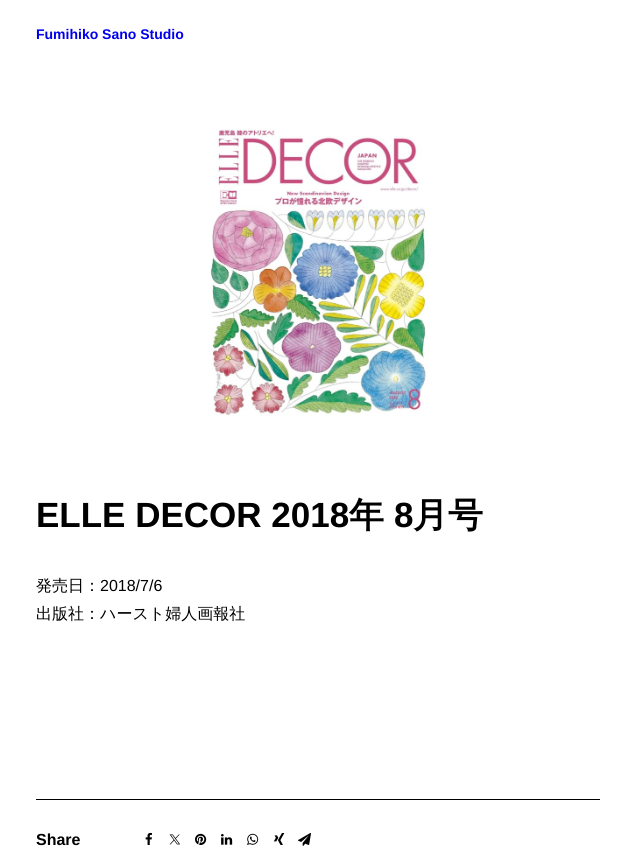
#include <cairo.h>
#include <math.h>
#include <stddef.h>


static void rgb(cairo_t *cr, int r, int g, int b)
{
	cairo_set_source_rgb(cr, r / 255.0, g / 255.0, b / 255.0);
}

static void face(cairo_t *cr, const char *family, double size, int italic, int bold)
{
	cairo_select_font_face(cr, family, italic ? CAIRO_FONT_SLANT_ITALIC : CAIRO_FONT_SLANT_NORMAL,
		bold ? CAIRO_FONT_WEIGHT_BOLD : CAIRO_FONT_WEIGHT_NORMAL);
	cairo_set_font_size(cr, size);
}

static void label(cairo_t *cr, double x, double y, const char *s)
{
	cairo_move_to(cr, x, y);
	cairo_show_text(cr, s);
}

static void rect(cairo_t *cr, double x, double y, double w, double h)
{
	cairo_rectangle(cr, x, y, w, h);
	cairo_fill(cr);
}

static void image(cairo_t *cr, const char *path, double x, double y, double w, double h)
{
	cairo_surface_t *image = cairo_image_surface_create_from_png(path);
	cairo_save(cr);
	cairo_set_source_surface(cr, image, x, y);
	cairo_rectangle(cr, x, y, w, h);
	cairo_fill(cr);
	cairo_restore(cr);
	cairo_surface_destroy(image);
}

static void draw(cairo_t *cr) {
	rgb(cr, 255, 255, 255);
	cairo_paint(cr);
	face(cr, "Liberation Sans", 14, 0, 1);
	rgb(cr, 0, 0, 238);
	label(cr, 36, 39, "Fumihiko Sano Studio");
	image(cr, "image0.png", 210, 129, 219, 287);
	face(cr, "Liberation Sans", 35, 0, 1);
	rgb(cr, 0, 0, 0);
	label(cr, 36, 527, "ELLE DECOR 2018");
	face(cr, "WenQuanYi Zen Hei", 35, 0, 1);
	label(cr, 349, 527, "年");
	face(cr, "Liberation Sans", 35, 0, 1);
	label(cr, 394, 527, "8");
	face(cr, "WenQuanYi Zen Hei", 35, 0, 1);
	label(cr, 413, 527, "月号");
	face(cr, "WenQuanYi Zen Hei Medium", 16, 0, 0);
	label(cr, 36, 591, "発売日：");
	face(cr, "Liberation Sans", 16, 0, 0);
	label(cr, 100, 591, "2018/7/6");
	face(cr, "WenQuanYi Zen Hei Medium", 16, 0, 0);
	label(cr, 36, 619, "出版社：ハースト婦人画報社");
	rect(cr, 36, 799, 564, 1);
	face(cr, "Liberation Sans", 16, 0, 1);
	label(cr, 36, 845, "Share");
	image(cr, "image1.png", 145, 832, 7, 13);
	image(cr, "image2.png", 169, 834, 12, 11);
	image(cr, "image3.png", 195, 833, 12, 12);
	image(cr, "image4.png", 221, 834, 12, 11);
	image(cr, "image5.png", 247, 833, 12, 12);
	image(cr, "image6.png", 274, 833, 11, 12);
	image(cr, "image7.png", 298, 832, 13, 14);
}

int main(void) {
	cairo_surface_t *surface = cairo_image_surface_create(CAIRO_FORMAT_RGB24, 636, 861);
	cairo_t *cr = cairo_create(surface);
	cairo_font_options_t *options = cairo_font_options_create();
	cairo_font_options_set_hint_metrics(options, CAIRO_HINT_METRICS_OFF);
	cairo_font_options_set_hint_style(options, CAIRO_HINT_STYLE_NONE);
	cairo_set_font_options(cr, options);
	cairo_set_miter_limit(cr, 4);
	draw(cr);
	cairo_surface_write_to_png(surface, "render.png");
	cairo_font_options_destroy(options);
	cairo_destroy(cr);
	cairo_surface_destroy(surface);
	return 0;
}
